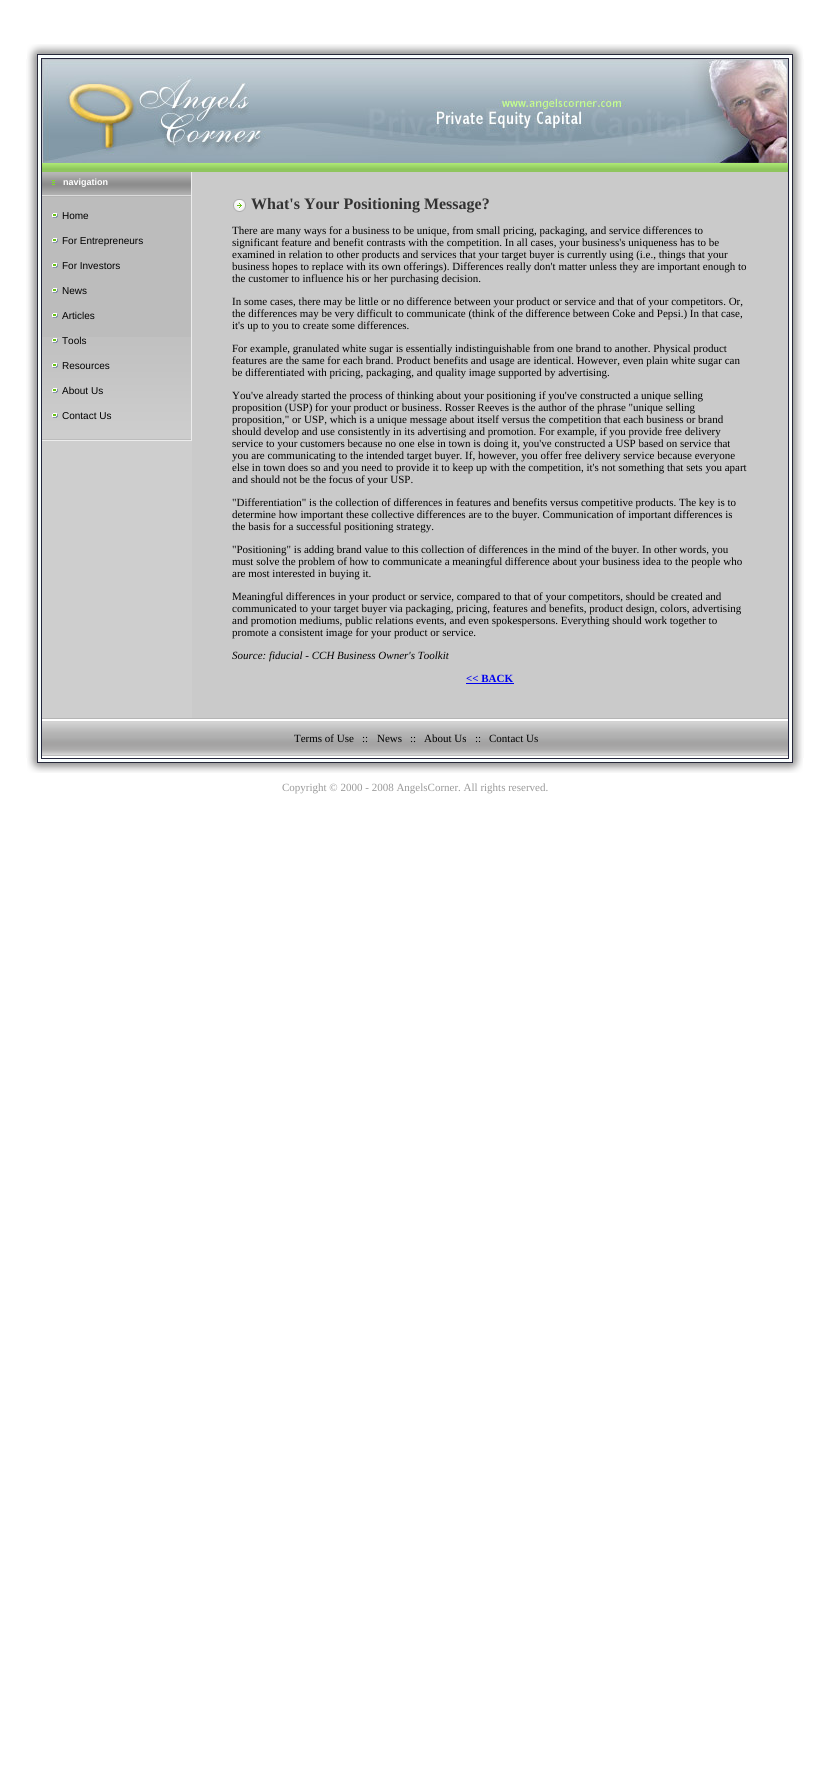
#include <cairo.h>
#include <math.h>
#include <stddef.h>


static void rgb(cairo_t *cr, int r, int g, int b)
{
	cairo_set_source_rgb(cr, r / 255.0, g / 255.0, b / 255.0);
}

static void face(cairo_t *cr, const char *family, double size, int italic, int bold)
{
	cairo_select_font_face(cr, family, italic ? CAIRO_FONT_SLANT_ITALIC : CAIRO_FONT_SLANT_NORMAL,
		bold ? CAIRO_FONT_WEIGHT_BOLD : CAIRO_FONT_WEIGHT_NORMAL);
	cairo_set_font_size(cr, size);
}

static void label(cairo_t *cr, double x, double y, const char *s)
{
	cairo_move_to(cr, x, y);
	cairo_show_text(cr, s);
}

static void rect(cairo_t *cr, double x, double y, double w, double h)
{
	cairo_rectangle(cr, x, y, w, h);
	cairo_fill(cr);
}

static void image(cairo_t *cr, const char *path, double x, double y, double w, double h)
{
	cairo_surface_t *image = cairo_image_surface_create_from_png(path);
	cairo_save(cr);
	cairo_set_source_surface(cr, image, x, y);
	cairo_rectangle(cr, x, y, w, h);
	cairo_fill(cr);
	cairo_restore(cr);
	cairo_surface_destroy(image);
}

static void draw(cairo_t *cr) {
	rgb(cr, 255, 255, 255);
	cairo_paint(cr);
	image(cr, "image0.png", 27, 44, 776, 15);
	image(cr, "image1.png", 26, 59, 16, 699);
	image(cr, "image2.png", 42, 59, 746, 113);
	image(cr, "image3.png", 788, 59, 16, 699);
	rgb(cr, 206, 206, 206);
	rect(cr, 42, 441, 150, 277);
	rgb(cr, 188, 188, 188);
	rect(cr, 42, 197, 149, 243);
	image(cr, "image4.png", 42, 337, 149, 102);
	rgb(cr, 236, 236, 236);
	rect(cr, 191, 172, 1, 269);
	rect(cr, 42, 440, 150, 1);
	image(cr, "image5.png", 42, 172, 149, 25);
	image(cr, "image6.png", 52, 180, 3, 5);
	face(cr, "Liberation Sans", 9, 0, 1);
	rgb(cr, 255, 255, 255);
	label(cr, 63, 185, "navigation");
	image(cr, "image7.png", 52, 213, 6, 5);
	face(cr, "Liberation Sans", 10, 0, 0);
	rgb(cr, 0, 0, 0);
	label(cr, 62, 219, "Home");
	image(cr, "image7.png", 52, 238, 6, 5);
	label(cr, 62, 244, "For Entrepreneurs");
	image(cr, "image7.png", 52, 263, 6, 5);
	label(cr, 62, 269, "For Investors");
	image(cr, "image7.png", 52, 288, 6, 5);
	label(cr, 62, 294, "News");
	image(cr, "image7.png", 52, 313, 6, 5);
	label(cr, 62, 319, "Articles");
	image(cr, "image8.png", 52, 338, 6, 5);
	label(cr, 62, 344, "Tools");
	image(cr, "image9.png", 52, 363, 6, 5);
	label(cr, 62, 369, "Resources");
	image(cr, "image10.png", 52, 388, 6, 5);
	label(cr, 62, 394, "About Us");
	image(cr, "image11.png", 52, 413, 6, 5);
	label(cr, 62, 419, "Contact Us");
	rgb(cr, 202, 202, 202);
	rect(cr, 192, 172, 596, 546);
	image(cr, "image12.png", 233, 199, 13, 13);
	face(cr, "Liberation Serif", 16, 0, 1);
	rgb(cr, 51, 51, 51);
	label(cr, 251, 209, "What's Your Positioning Message?");
	face(cr, "Liberation Serif", 11, 0, 0);
	rgb(cr, 0, 0, 0);
	label(cr, 232, 234, "There are many ways for a business to be unique, from small pricing, packaging, and service differences to");
	label(cr, 232, 246, "significant feature and benefit contrasts with the competition. In all cases, your business's uniqueness has to be");
	label(cr, 232, 258, "examined in relation to other products and services that your target buyer is currently using (i.e., things that your");
	label(cr, 232, 270, "business hopes to replace with its own offerings). Differences really don't matter unless they are important enough to");
	label(cr, 232, 282, "the customer to influence his or her purchasing decision.");
	label(cr, 232, 305, "In some cases, there may be little or no difference between your product or service and that of your competitors. Or,");
	label(cr, 232, 317, "the differences may be very difficult to communicate (think of the difference between Coke and Pepsi.) In that case,");
	label(cr, 232, 329, "it's up to you to create some differences.");
	label(cr, 232, 352, "For example, granulated white sugar is essentially indistinguishable from one brand to another. Physical product");
	label(cr, 232, 364, "features are the same for each brand. Product benefits and usage are identical. However, even plain white sugar can");
	label(cr, 232, 376, "be differentiated with pricing, packaging, and quality image supported by advertising.");
	label(cr, 232, 399, "You've already started the process of thinking about your positioning if you've constructed a unique selling");
	label(cr, 232, 411, "proposition (USP) for your product or business. Rosser Reeves is the author of the phrase \"unique selling");
	label(cr, 232, 423, "proposition,\" or USP, which is a unique message about itself versus the competition that each business or brand");
	label(cr, 232, 435, "should develop and use consistently in its advertising and promotion. For example, if you provide free delivery");
	label(cr, 232, 447, "service to your customers because no one else in town is doing it, you've constructed a USP based on service that");
	label(cr, 232, 459, "you are communicating to the intended target buyer. If, however, you offer free delivery service because everyone");
	label(cr, 232, 471, "else in town does so and you need to provide it to keep up with the competition, it's not something that sets you apart");
	label(cr, 232, 483, "and should not be the focus of your USP.");
	label(cr, 232, 506, "\"Differentiation\" is the collection of differences in features and benefits versus competitive products. The key is to");
	label(cr, 232, 518, "determine how important these collective differences are to the buyer. Communication of important differences is");
	label(cr, 232, 530, "the basis for a successful positioning strategy.");
	label(cr, 232, 553, "\"Positioning\" is adding brand value to this collection of differences in the mind of the buyer. In other words, you");
	label(cr, 232, 565, "must solve the problem of how to communicate a meaningful difference about your business idea to the people who");
	label(cr, 232, 577, "are most interested in buying it.");
	label(cr, 232, 600, "Meaningful differences in your product or service, compared to that of your competitors, should be created and");
	label(cr, 232, 612, "communicated to your target buyer via packaging, pricing, features and benefits, product design, colors, advertising");
	label(cr, 232, 624, "and promotion mediums, public relations events, and even spokespersons. Everything should work together to");
	label(cr, 232, 636, "promote a consistent image for your product or service.");
	face(cr, "Liberation Serif", 11, 1, 0);
	label(cr, 232, 659, "Source: fiducial - CCH Business Owner's Toolkit");
	face(cr, "Liberation Serif", 11, 0, 1);
	rgb(cr, 0, 0, 238);
	label(cr, 466, 682, "<< BACK");
	rect(cr, 466, 683, 48, 1);
	image(cr, "image13.png", 42, 718, 746, 38);
	face(cr, "Liberation Serif", 11, 0, 0);
	rgb(cr, 0, 0, 0);
	label(cr, 294, 742, "Terms of Use");
	label(cr, 362, 742, "::");
	label(cr, 377, 742, "News");
	label(cr, 410, 742, "::");
	label(cr, 424, 742, "About Us");
	label(cr, 475, 742, "::");
	label(cr, 489, 742, "Contact Us");
	image(cr, "image14.png", 27, 758, 776, 15);
	rgb(cr, 153, 153, 153);
	label(cr, 282, 791, "Copyright © 2000 - 2008 AngelsCorner. All rights reserved.");
}

int main(void) {
	cairo_surface_t *surface = cairo_image_surface_create(CAIRO_FORMAT_RGB24, 830, 1771);
	cairo_t *cr = cairo_create(surface);
	cairo_font_options_t *options = cairo_font_options_create();
	cairo_font_options_set_hint_metrics(options, CAIRO_HINT_METRICS_OFF);
	cairo_font_options_set_hint_style(options, CAIRO_HINT_STYLE_NONE);
	cairo_set_font_options(cr, options);
	cairo_set_miter_limit(cr, 4);
	draw(cr);
	cairo_surface_write_to_png(surface, "render.png");
	cairo_font_options_destroy(options);
	cairo_destroy(cr);
	cairo_surface_destroy(surface);
	return 0;
}
